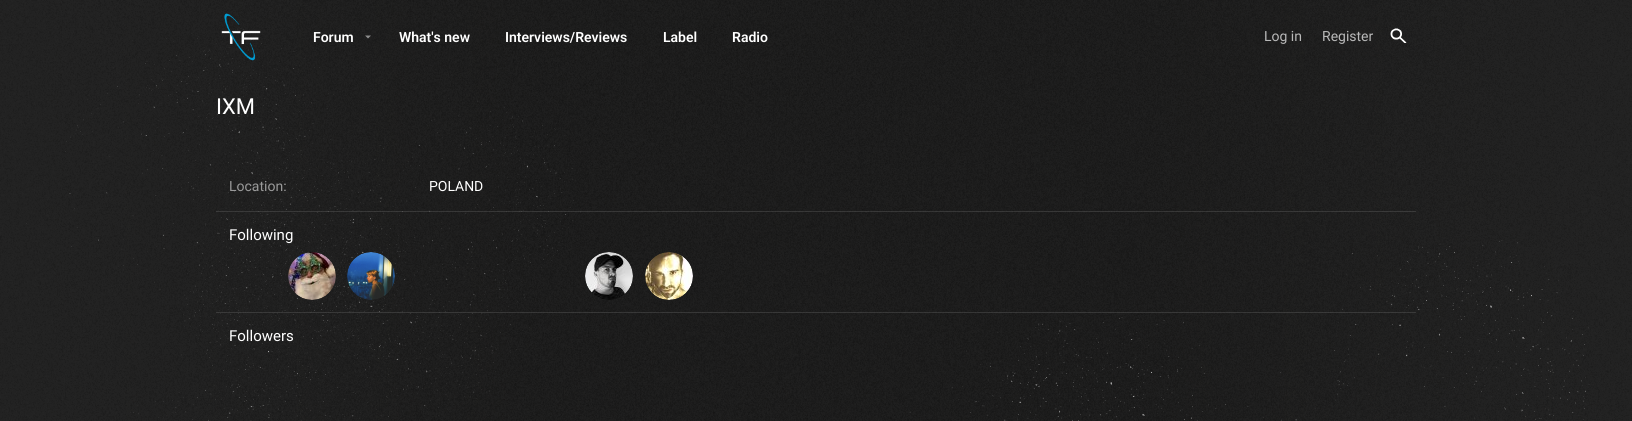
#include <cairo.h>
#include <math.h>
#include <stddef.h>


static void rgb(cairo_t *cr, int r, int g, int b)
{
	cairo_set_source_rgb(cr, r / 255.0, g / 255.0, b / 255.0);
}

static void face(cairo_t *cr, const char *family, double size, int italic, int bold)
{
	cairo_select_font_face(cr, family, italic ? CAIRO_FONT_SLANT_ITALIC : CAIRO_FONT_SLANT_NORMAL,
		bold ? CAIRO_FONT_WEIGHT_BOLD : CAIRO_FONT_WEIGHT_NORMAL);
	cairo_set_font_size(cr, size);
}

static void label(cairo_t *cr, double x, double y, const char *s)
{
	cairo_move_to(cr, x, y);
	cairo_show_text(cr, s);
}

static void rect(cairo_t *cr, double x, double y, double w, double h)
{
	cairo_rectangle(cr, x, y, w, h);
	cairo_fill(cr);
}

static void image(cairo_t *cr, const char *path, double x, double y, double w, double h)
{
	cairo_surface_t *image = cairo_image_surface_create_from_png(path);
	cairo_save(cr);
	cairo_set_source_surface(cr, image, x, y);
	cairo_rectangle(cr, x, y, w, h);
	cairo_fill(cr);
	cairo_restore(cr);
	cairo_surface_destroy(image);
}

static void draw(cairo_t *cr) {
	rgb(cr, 255, 255, 255);
	cairo_paint(cr);
	image(cr, "image0.png", 0, 0, 1632, 421);
	image(cr, "image1.png", 221, 13, 40, 48);
	face(cr, "Roboto SemiBold", 14, 0, 0);
	rgb(cr, 255, 255, 255);
	label(cr, 313, 42, "Forum");
	cairo_set_source_rgba(cr, 1, 1, 1, 0.5);
	cairo_new_path(cr);
	cairo_move_to(cr, 365, 35.5);
	cairo_line_to(cr, 368, 38.5);
	cairo_line_to(cr, 371, 35.5);
	cairo_close_path(cr);
	cairo_fill(cr);
	rgb(cr, 255, 255, 255);
	label(cr, 399, 42, "What's new");
	label(cr, 505, 42, "Interviews/Reviews");
	label(cr, 663, 42, "Label");
	label(cr, 732, 42, "Radio");
	face(cr, "Roboto", 14, 0, 0);
	rgb(cr, 185, 185, 185);
	label(cr, 1264, 41, "Log in");
	label(cr, 1322, 41, "Register");
	image(cr, "image2.png", 1390, 28, 17, 15);
	face(cr, "Roboto", 22, 0, 0);
	rgb(cr, 255, 255, 255);
	label(cr, 216, 114, "IXM");
	face(cr, "Roboto", 14, 0, 0);
	rgb(cr, 154, 154, 154);
	label(cr, 229, 191, "Location:");
	rgb(cr, 255, 255, 255);
	label(cr, 429, 191, "POLAND");
	cairo_set_source_rgba(cr, 1, 1, 1, 0.12);
	rect(cr, 216, 211, 1200, 1);
	face(cr, "Roboto", 15, 0, 0);
	rgb(cr, 255, 255, 255);
	label(cr, 229, 240, "Following");
	rgb(cr, 29, 29, 29);
	cairo_new_path(cr);
	cairo_arc(cr, 312, 276, 24, 0, 2 * M_PI);
	cairo_fill(cr);
	image(cr, "image3.png", 288, 252, 48, 48);
	cairo_arc(cr, 371, 276, 24, 0, 2 * M_PI);
	cairo_fill(cr);
	image(cr, "image4.png", 347, 252, 48, 48);
	cairo_arc(cr, 609, 276, 24, 0, 2 * M_PI);
	cairo_fill(cr);
	image(cr, "image5.png", 585, 252, 48, 48);
	cairo_arc(cr, 669, 276, 24, 0, 2 * M_PI);
	cairo_fill(cr);
	image(cr, "image6.png", 645, 252, 48, 48);
	cairo_set_source_rgba(cr, 1, 1, 1, 0.12);
	rect(cr, 216, 312, 1200, 1);
	rgb(cr, 255, 255, 255);
	label(cr, 229, 341, "Followers");
}

int main(void) {
	cairo_surface_t *surface = cairo_image_surface_create(CAIRO_FORMAT_RGB24, 1632, 421);
	cairo_t *cr = cairo_create(surface);
	cairo_font_options_t *options = cairo_font_options_create();
	cairo_font_options_set_hint_metrics(options, CAIRO_HINT_METRICS_OFF);
	cairo_font_options_set_hint_style(options, CAIRO_HINT_STYLE_NONE);
	cairo_set_font_options(cr, options);
	cairo_set_miter_limit(cr, 4);
	draw(cr);
	cairo_surface_write_to_png(surface, "render.png");
	cairo_font_options_destroy(options);
	cairo_destroy(cr);
	cairo_surface_destroy(surface);
	return 0;
}
